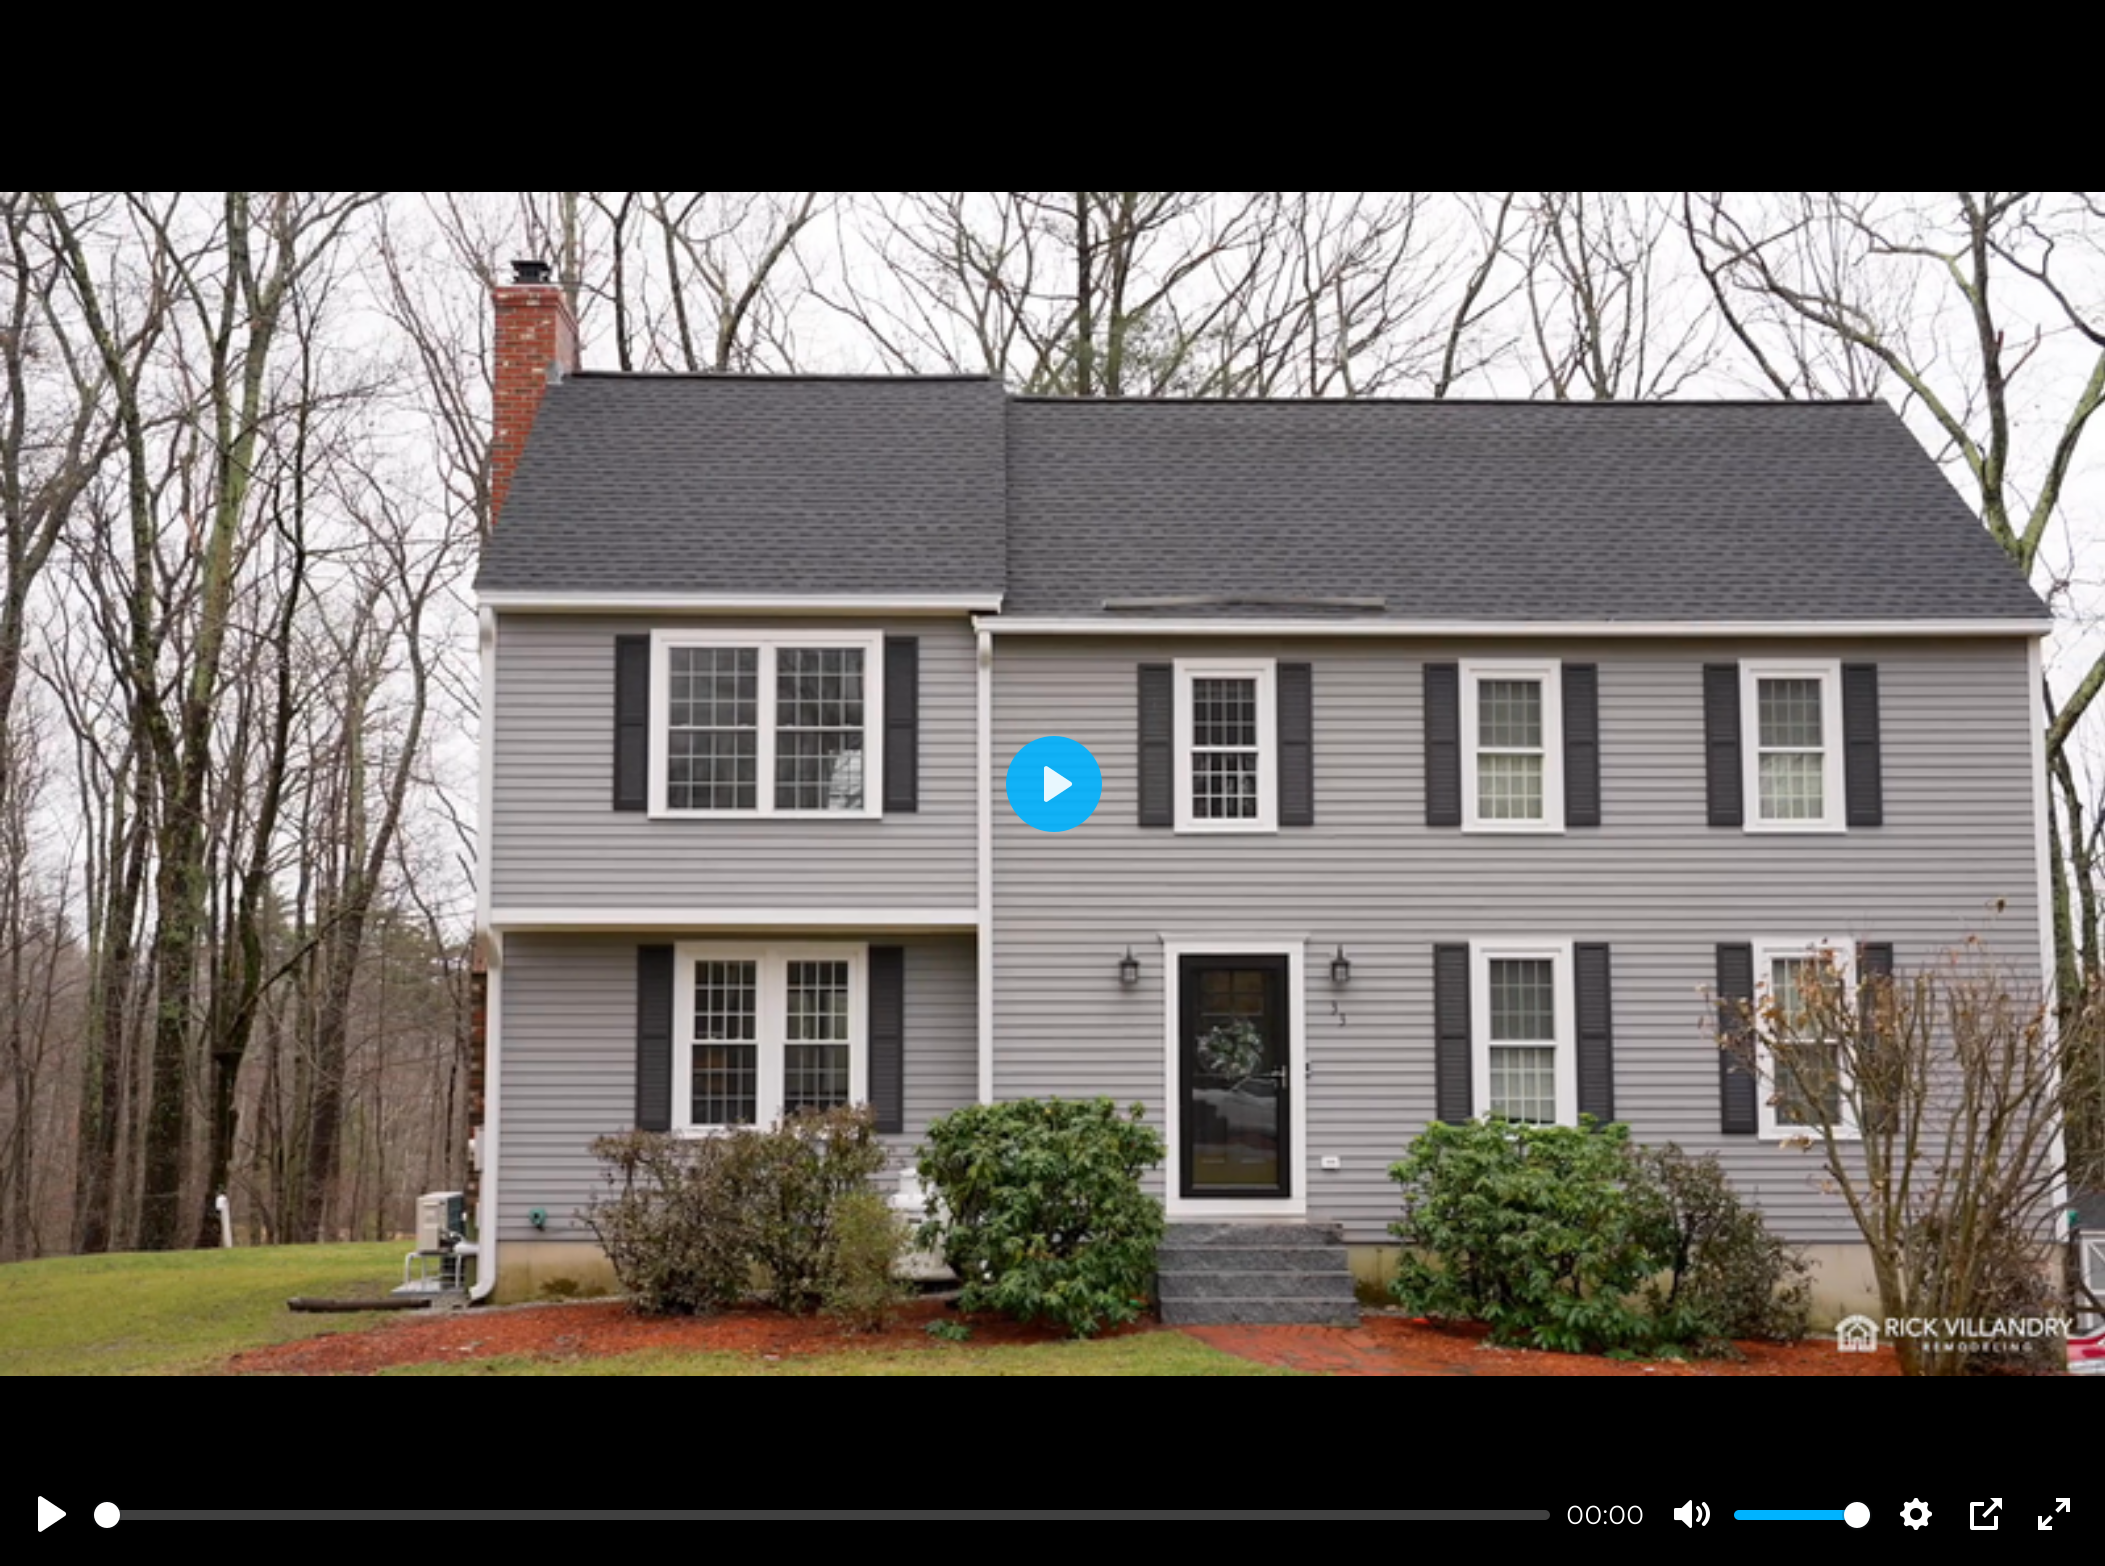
#include <cairo.h>
#include <math.h>
#include <stddef.h>


static void rgb(cairo_t *cr, int r, int g, int b)
{
	cairo_set_source_rgb(cr, r / 255.0, g / 255.0, b / 255.0);
}

static void face(cairo_t *cr, const char *family, double size, int italic, int bold)
{
	cairo_select_font_face(cr, family, italic ? CAIRO_FONT_SLANT_ITALIC : CAIRO_FONT_SLANT_NORMAL,
		bold ? CAIRO_FONT_WEIGHT_BOLD : CAIRO_FONT_WEIGHT_NORMAL);
	cairo_set_font_size(cr, size);
}

static void label(cairo_t *cr, double x, double y, const char *s)
{
	cairo_move_to(cr, x, y);
	cairo_show_text(cr, s);
}

static void rrect(cairo_t *cr, double x, double y, double w, double h, double r)
{
	cairo_new_sub_path(cr);
	cairo_arc(cr, x + w - r, y + h - r, r, 0, M_PI / 2);
	cairo_arc(cr, x + r, y + h - r, r, M_PI / 2, M_PI);
	cairo_arc(cr, x + r, y + r, r, M_PI, 1.5 * M_PI);
	cairo_arc(cr, x + w - r, y + r, r, 1.5 * M_PI, 2 * M_PI);
	cairo_close_path(cr);
}

static void soft_shadow(cairo_t *cr, double x, double y, double w, double h, double r, double blur, double alpha)
{
	cairo_push_group_with_content(cr, CAIRO_CONTENT_ALPHA);
	cairo_set_operator(cr, CAIRO_OPERATOR_SOURCE);
	for (int i = 15; i >= -15 && fmin(w, h) + blur * i / 3 > 0; i -= 2) {
		double e = blur * i / 6;
		cairo_set_source_rgba(cr, 0, 0, 0, alpha * erfc((i - 1) / 8.5) / 2);
		rrect(cr, x - e, y - e, w + 2 * e, h + 2 * e, fmax(0, fmin(r + e + blur * .6, fmin(w, h) / 2 + e)));
		cairo_fill(cr);
	}
	cairo_pattern_t *soft = cairo_pop_group(cr);
	cairo_mask(cr, soft);
	cairo_pattern_destroy(soft);
}

static void image(cairo_t *cr, const char *path, double x, double y, double w, double h)
{
	cairo_surface_t *image = cairo_image_surface_create_from_png(path);
	cairo_save(cr);
	cairo_set_source_surface(cr, image, x, y);
	cairo_rectangle(cr, x, y, w, h);
	cairo_fill(cr);
	cairo_restore(cr);
	cairo_surface_destroy(image);
}

static void draw(cairo_t *cr) {
	rgb(cr, 0, 0, 0);
	cairo_paint(cr);
	image(cr, "image0.png", 0, 192, 2105, 1184);
	cairo_set_source_rgba(cr, 0, 0.702, 1, 0.9);
	cairo_arc(cr, 1054, 784, 48, 0, 2 * M_PI);
	cairo_fill(cr);
	cairo_set_source_rgba(cr, 1, 1, 1, 0.9);
	cairo_new_path(cr);
	cairo_move_to(cr, 1071, 782);
	cairo_line_to(cr, 1047.5, 766.5);
	cairo_curve_to(cr, 1046, 765.5, 1044, 766.5, 1044, 768);
	cairo_line_to(cr, 1044, 800);
	cairo_curve_to(cr, 1044, 801.5, 1046, 802.5, 1047.5, 801.5);
	cairo_line_to(cr, 1071, 786);
	cairo_curve_to(cr, 1072.5, 785, 1072.5, 783, 1071, 782);
	cairo_close_path(cr);
	cairo_fill(cr);
	rgb(cr, 255, 255, 255);
	cairo_new_path(cr);
	cairo_move_to(cr, 65, 1512);
	cairo_line_to(cr, 41.5, 1496.5);
	cairo_curve_to(cr, 40, 1495.5, 38, 1496.5, 38, 1498);
	cairo_line_to(cr, 38, 1530);
	cairo_curve_to(cr, 38, 1531.5, 40, 1532.5, 41.5, 1531.5);
	cairo_line_to(cr, 65, 1516);
	cairo_curve_to(cr, 66.5, 1515, 66.5, 1513, 65, 1512);
	cairo_close_path(cr);
	cairo_fill(cr);
	cairo_set_source_rgba(cr, 1, 1, 1, 0.25);
	rrect(cr, 94, 1510, 1456, 10, 5);
	cairo_fill(cr);
	cairo_arc(cr, 107, 1515, 14, 0, 2 * M_PI);
	cairo_set_source_rgba(cr, 0.137, 0.157, 0.184, 0.2);
	cairo_stroke(cr);
	rgb(cr, 255, 255, 255);
	cairo_arc(cr, 107, 1515, 13, 0, 2 * M_PI);
	cairo_fill(cr);
	face(cr, "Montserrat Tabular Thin", 26, 0, 0);
	label(cr, 1566, 1524, "00:00");
	image(cr, "image1.png", 1674, 1500, 36, 28);
	rgb(cr, 0, 179, 255);
	rrect(cr, 1734, 1510, 136, 10, 5);
	cairo_fill(cr);
	cairo_arc(cr, 1857, 1515, 14, 0, 2 * M_PI);
	cairo_set_source_rgba(cr, 0.137, 0.157, 0.184, 0.2);
	cairo_stroke(cr);
	rgb(cr, 35, 40, 47);
	soft_shadow(cr, 1844, 1504, 26, 26, 13, 1, 0.15);
	rgb(cr, 255, 255, 255);
	cairo_arc(cr, 1857, 1515, 13, 0, 2 * M_PI);
	cairo_fill(cr);
	image(cr, "image2.png", 1900, 1498, 32, 32);
	image(cr, "image3.png", 1970, 1498, 32, 32);
	image(cr, "image4.png", 2038, 1498, 32, 32);
}

int main(void) {
	cairo_surface_t *surface = cairo_image_surface_create(CAIRO_FORMAT_RGB24, 2105, 1566);
	cairo_t *cr = cairo_create(surface);
	cairo_font_options_t *options = cairo_font_options_create();
	cairo_font_options_set_hint_metrics(options, CAIRO_HINT_METRICS_OFF);
	cairo_font_options_set_hint_style(options, CAIRO_HINT_STYLE_NONE);
	cairo_set_font_options(cr, options);
	cairo_set_miter_limit(cr, 4);
	draw(cr);
	cairo_surface_write_to_png(surface, "render.png");
	cairo_font_options_destroy(options);
	cairo_destroy(cr);
	cairo_surface_destroy(surface);
	return 0;
}
